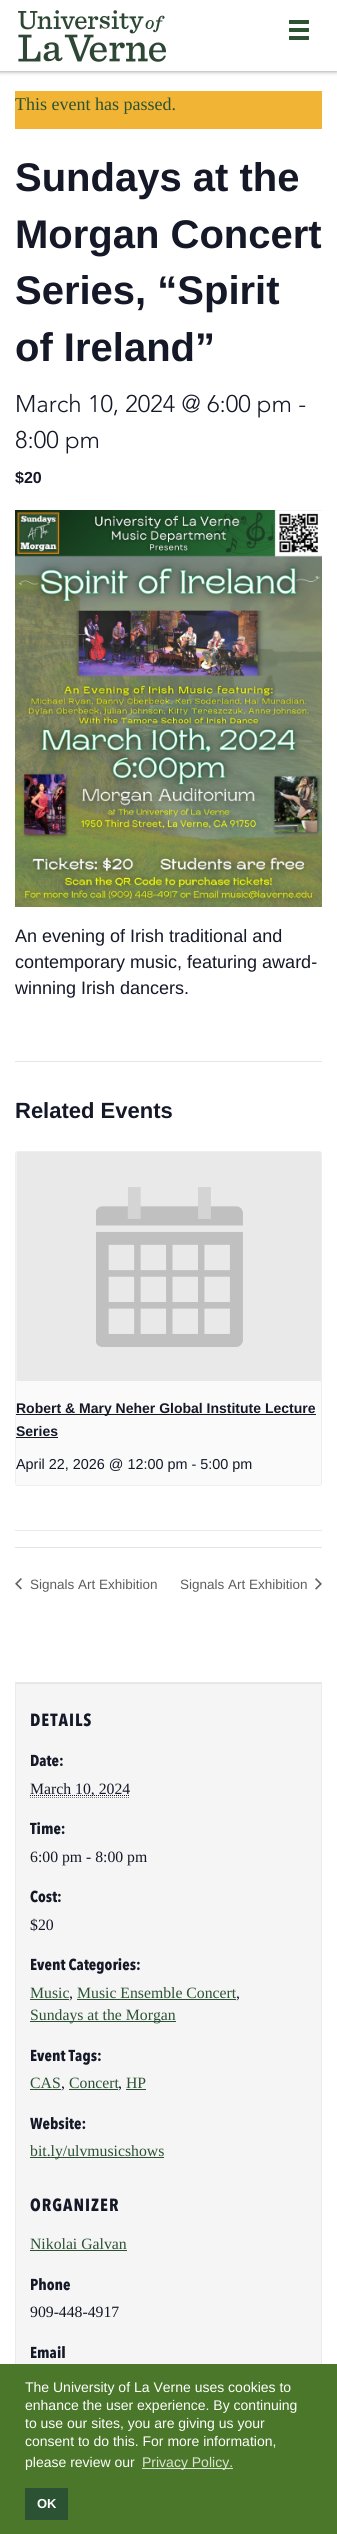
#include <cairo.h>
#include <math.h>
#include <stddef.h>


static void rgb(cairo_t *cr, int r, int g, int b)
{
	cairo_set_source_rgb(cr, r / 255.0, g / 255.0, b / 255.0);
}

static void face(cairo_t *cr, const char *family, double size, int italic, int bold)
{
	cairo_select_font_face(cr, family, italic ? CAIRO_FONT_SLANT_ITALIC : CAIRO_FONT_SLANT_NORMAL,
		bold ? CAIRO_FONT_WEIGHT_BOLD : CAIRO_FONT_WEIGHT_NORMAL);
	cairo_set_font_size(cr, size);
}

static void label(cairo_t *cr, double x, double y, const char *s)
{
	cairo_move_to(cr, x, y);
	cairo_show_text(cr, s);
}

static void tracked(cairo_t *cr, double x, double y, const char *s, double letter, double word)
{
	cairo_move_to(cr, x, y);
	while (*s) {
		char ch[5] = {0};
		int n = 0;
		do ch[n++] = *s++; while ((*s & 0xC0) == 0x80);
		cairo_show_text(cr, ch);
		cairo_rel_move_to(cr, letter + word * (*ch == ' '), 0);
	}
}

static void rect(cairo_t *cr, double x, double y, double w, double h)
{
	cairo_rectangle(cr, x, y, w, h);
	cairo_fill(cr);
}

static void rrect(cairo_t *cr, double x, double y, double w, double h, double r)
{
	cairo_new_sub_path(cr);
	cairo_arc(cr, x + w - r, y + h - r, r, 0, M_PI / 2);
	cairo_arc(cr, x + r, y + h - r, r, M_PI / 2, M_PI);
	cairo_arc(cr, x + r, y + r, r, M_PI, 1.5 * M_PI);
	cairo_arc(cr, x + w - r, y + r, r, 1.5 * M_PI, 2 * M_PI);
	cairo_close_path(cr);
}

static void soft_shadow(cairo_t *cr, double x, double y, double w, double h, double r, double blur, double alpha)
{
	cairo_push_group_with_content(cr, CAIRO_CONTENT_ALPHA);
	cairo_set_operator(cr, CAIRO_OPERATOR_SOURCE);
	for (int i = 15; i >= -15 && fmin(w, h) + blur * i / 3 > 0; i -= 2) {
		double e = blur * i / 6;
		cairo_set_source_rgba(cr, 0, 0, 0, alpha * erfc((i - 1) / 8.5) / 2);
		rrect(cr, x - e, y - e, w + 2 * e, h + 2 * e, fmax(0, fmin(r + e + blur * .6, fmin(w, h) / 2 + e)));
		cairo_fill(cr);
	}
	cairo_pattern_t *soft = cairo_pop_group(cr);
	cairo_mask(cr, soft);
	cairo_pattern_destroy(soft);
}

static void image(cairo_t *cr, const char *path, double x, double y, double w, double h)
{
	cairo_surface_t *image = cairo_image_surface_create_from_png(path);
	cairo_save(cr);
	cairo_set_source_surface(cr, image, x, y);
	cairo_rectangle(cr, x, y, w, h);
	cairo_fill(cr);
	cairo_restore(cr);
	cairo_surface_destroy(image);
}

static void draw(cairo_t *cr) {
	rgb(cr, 255, 255, 255);
	cairo_paint(cr);
	cairo_save(cr);
	cairo_rectangle(cr, 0, 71, 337, 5);
	cairo_clip(cr);
	rgb(cr, 134, 134, 134);
	soft_shadow(cr, 0, 0, 337, 71, 0, 2.5, 1);
	cairo_restore(cr);
	image(cr, "image0.png", 18, 10, 148, 52);
	image(cr, "image1.png", 289, 20, 20, 20);
	rgb(cr, 241, 180, 52);
	rect(cr, 15, 91, 307, 38);
	face(cr, "Liberation Serif", 18, 0, 0);
	rgb(cr, 44, 82, 52);
	label(cr, 15, 110, "This event has passed.");
	face(cr, "Liberation Sans", 40, 0, 1);
	rgb(cr, 20, 24, 39);
	label(cr, 15, 191, "Sundays at the");
	label(cr, 15, 248, "Morgan Concert");
	label(cr, 15, 304, "Series, “Spirit");
	label(cr, 15, 361, "of Ireland”");
	face(cr, "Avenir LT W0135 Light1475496 Light", 24, 0, 0);
	label(cr, 15, 412, "March 10, 2024 @ 6:00 pm -");
	label(cr, 15, 448, "8:00 pm");
	face(cr, "Liberation Sans", 16, 0, 1);
	label(cr, 15, 483, "$20");
	image(cr, "image2.png", 15, 510, 307, 397);
	face(cr, "Liberation Sans", 18, 0, 0);
	label(cr, 15, 942, "An evening of Irish traditional and");
	label(cr, 15, 968, "contemporary music, featuring award-");
	label(cr, 15, 994, "winning Irish dancers.");
	rgb(cr, 228, 228, 228);
	rect(cr, 15, 1061, 307, 1);
	face(cr, "Liberation Sans", 22, 0, 1);
	rgb(cr, 20, 24, 39);
	label(cr, 15, 1118, "Related Events");
	rgb(cr, 235, 235, 235);
	rect(cr, 15, 1530, 307, 1);
	rgb(cr, 250, 250, 250);
	rrect(cr, 15.5, 1151.5, 306, 334, 2.5);
	cairo_fill_preserve(cr);
	rgb(cr, 238, 238, 238);
	cairo_set_line_width(cr, 1);
	cairo_stroke(cr);
	image(cr, "image3.png", 16, 1152, 305, 229);
	rgb(cr, 20, 24, 39);
	rect(cr, 16, 1414, 300, 1);
	face(cr, "Liberation Sans", 14, 0, 1);
	label(cr, 16, 1413, "Robert & Mary Neher Global Institute Lecture");
	label(cr, 16, 1436, "Series");
	rect(cr, 16, 1437, 42, 1);
	face(cr, "Liberation Sans", 14.4, 0, 0);
	label(cr, 16, 1469, "April 22, 2026 @ 12:00 pm - 5:00 pm");
	rgb(cr, 228, 228, 228);
	rect(cr, 15, 1547, 307, 1);
	image(cr, "image4.png", 15, 1578, 7, 12);
	face(cr, "Liberation Sans", 13.5, 0, 0);
	rgb(cr, 93, 93, 93);
	label(cr, 30, 1589, "Signals Art Exhibition");
	label(cr, 180, 1589, "Signals Art Exhibition");
	image(cr, "image5.png", 315, 1578, 7, 12);
	rgb(cr, 245, 245, 245);
	rect(cr, 16, 1684, 305, 680);
	cairo_rectangle(cr, 15.5, 1682.5, 306, 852);
	rgb(cr, 235, 235, 235);
	cairo_stroke(cr);
	rgb(cr, 228, 228, 228);
	rect(cr, 16, 1683, 305, 1);
	face(cr, "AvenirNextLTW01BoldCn", 17.5, 0, 1);
	rgb(cr, 20, 24, 39);
	tracked(cr, 30, 1726, "DETAILS", 1, 0);
	face(cr, "AvenirNextLTW01BoldCn", 15.75, 0, 1);
	label(cr, 30, 1766, "Date:");
	cairo_new_path(cr);
	cairo_move_to(cr, 30, 1795.5);
	cairo_line_to(cr, 130, 1795.5);
	cairo_set_dash(cr, (double[]){1, 1}, 2, 0);
	cairo_stroke(cr);
	face(cr, "Liberation Serif", 15.75, 0, 0);
	label(cr, 30, 1794, "March 10, 2024");
	cairo_new_path(cr);
	cairo_move_to(cr, 30, 1797.5);
	cairo_line_to(cr, 130, 1797.5);
	rgb(cr, 131, 120, 111);
	cairo_stroke(cr);
	face(cr, "AvenirNextLTW01BoldCn", 15.75, 0, 1);
	rgb(cr, 20, 24, 39);
	label(cr, 30, 1834, "Time:");
	face(cr, "Liberation Serif", 15.75, 0, 0);
	label(cr, 30, 1862, "6:00 pm - 8:00 pm");
	face(cr, "AvenirNextLTW01BoldCn", 15.75, 0, 1);
	label(cr, 30, 1902, "Cost:");
	face(cr, "Liberation Serif", 15.75, 0, 0);
	label(cr, 30, 1930, "$20");
	face(cr, "AvenirNextLTW01BoldCn", 15.75, 0, 1);
	label(cr, 30, 1970, "Event Categories:");
	face(cr, "Liberation Serif", 15.75, 0, 0);
	rgb(cr, 44, 82, 52);
	label(cr, 30, 1998, "Music");
	rect(cr, 30, 1999, 39, 1);
	rgb(cr, 20, 24, 39);
	label(cr, 69, 1998, ",");
	rgb(cr, 44, 82, 52);
	label(cr, 77, 1998, "Music Ensemble Concert");
	rect(cr, 77, 1999, 159, 1);
	rgb(cr, 20, 24, 39);
	label(cr, 236, 1998, ",");
	rgb(cr, 44, 82, 52);
	rect(cr, 30, 2021, 146, 1);
	label(cr, 30, 2020, "Sundays at the Morgan");
	face(cr, "AvenirNextLTW01BoldCn", 15.75, 0, 1);
	rgb(cr, 20, 24, 39);
	label(cr, 30, 2061, "Event Tags:");
	face(cr, "Liberation Serif", 15.75, 0, 0);
	rgb(cr, 44, 82, 52);
	label(cr, 30, 2088, "CAS");
	rect(cr, 30, 2089, 31, 1);
	label(cr, 69, 2088, "Concert");
	rect(cr, 69, 2089, 49, 1);
	label(cr, 126, 2088, "HP");
	rect(cr, 126, 2089, 20, 1);
	rgb(cr, 20, 24, 39);
	label(cr, 61, 2088, ",");
	label(cr, 118, 2088, ",");
	face(cr, "AvenirNextLTW01BoldCn", 15.75, 0, 1);
	label(cr, 30, 2129, "Website:");
	rgb(cr, 44, 82, 52);
	rect(cr, 30, 2157, 134, 1);
	face(cr, "Liberation Serif", 15.75, 0, 0);
	label(cr, 30, 2156, "bit.ly/ulvmusicshows");
	face(cr, "AvenirNextLTW01BoldCn", 17.5, 0, 1);
	rgb(cr, 20, 24, 39);
	tracked(cr, 30, 2211, "ORGANIZER", 1, 0);
	face(cr, "Liberation Serif", 15.75, 0, 0);
	rgb(cr, 44, 82, 52);
	label(cr, 30, 2249, "Nikolai Galvan");
	rect(cr, 30, 2250, 97, 1);
	face(cr, "AvenirNextLTW01BoldCn", 15.75, 0, 1);
	rgb(cr, 20, 24, 39);
	label(cr, 30, 2290, "Phone");
	face(cr, "Liberation Serif", 15.75, 0, 0);
	label(cr, 30, 2317, "909-448-4917");
	face(cr, "AvenirNextLTW01BoldCn", 15.75, 0, 1);
	label(cr, 30, 2358, "Email");
	rgb(cr, 74, 119, 41);
	rect(cr, 0, 2364, 337, 170);
	face(cr, "Liberation Sans", 14, 0, 0);
	rgb(cr, 255, 255, 255);
	label(cr, 25, 2392, "The University of La Verne uses cookies to");
	label(cr, 25, 2410, "enhance the user experience. By continuing");
	label(cr, 25, 2428, "to use our sites, you are giving us your");
	label(cr, 25, 2446, "consent to do this. For more information,");
	label(cr, 25, 2467, "please review our");
	rgb(cr, 219, 228, 212);
	rect(cr, 142, 2468, 91, 1);
	label(cr, 142, 2467, "Privacy Policy.");
	rgb(cr, 44, 82, 52);
	rect(cr, 25, 2488, 43, 32);
	face(cr, "Liberation Sans", 13, 0, 1);
	rgb(cr, 255, 255, 255);
	label(cr, 37, 2508, "OK");
}

int main(void) {
	cairo_surface_t *surface = cairo_image_surface_create(CAIRO_FORMAT_RGB24, 337, 2534);
	cairo_t *cr = cairo_create(surface);
	cairo_font_options_t *options = cairo_font_options_create();
	cairo_font_options_set_hint_metrics(options, CAIRO_HINT_METRICS_OFF);
	cairo_font_options_set_hint_style(options, CAIRO_HINT_STYLE_NONE);
	cairo_set_font_options(cr, options);
	cairo_set_miter_limit(cr, 4);
	draw(cr);
	cairo_surface_write_to_png(surface, "render.png");
	cairo_font_options_destroy(options);
	cairo_destroy(cr);
	cairo_surface_destroy(surface);
	return 0;
}
